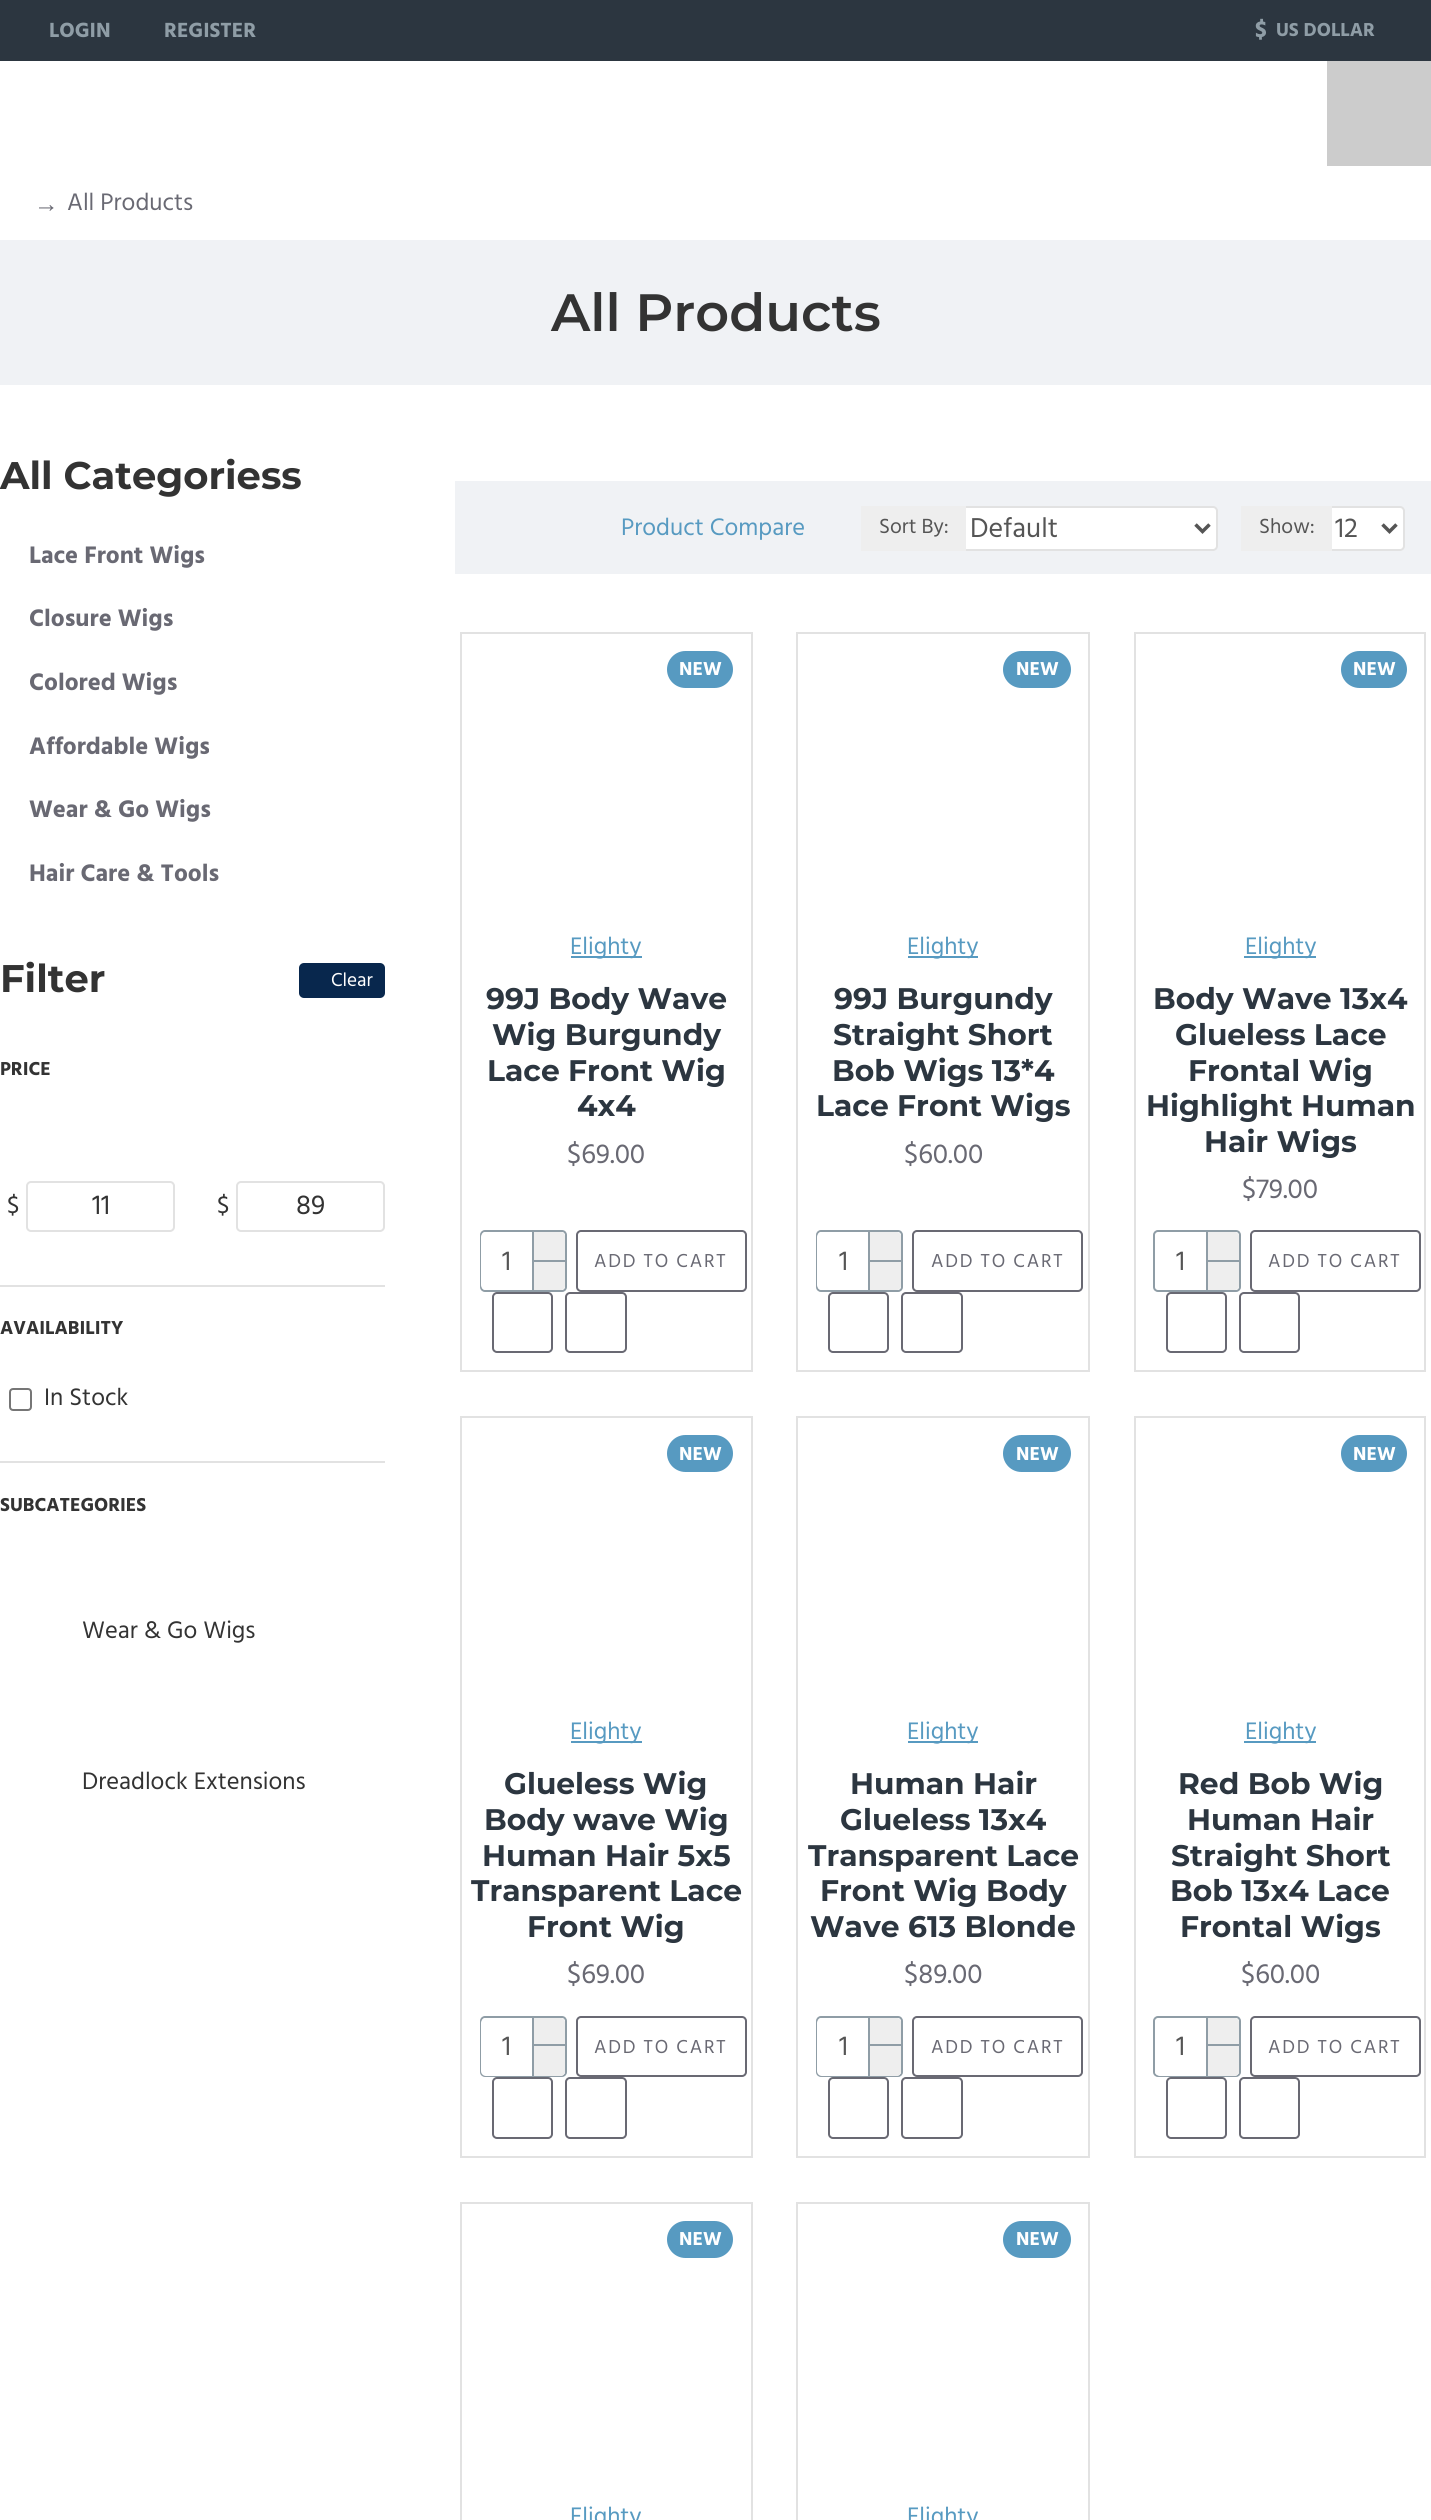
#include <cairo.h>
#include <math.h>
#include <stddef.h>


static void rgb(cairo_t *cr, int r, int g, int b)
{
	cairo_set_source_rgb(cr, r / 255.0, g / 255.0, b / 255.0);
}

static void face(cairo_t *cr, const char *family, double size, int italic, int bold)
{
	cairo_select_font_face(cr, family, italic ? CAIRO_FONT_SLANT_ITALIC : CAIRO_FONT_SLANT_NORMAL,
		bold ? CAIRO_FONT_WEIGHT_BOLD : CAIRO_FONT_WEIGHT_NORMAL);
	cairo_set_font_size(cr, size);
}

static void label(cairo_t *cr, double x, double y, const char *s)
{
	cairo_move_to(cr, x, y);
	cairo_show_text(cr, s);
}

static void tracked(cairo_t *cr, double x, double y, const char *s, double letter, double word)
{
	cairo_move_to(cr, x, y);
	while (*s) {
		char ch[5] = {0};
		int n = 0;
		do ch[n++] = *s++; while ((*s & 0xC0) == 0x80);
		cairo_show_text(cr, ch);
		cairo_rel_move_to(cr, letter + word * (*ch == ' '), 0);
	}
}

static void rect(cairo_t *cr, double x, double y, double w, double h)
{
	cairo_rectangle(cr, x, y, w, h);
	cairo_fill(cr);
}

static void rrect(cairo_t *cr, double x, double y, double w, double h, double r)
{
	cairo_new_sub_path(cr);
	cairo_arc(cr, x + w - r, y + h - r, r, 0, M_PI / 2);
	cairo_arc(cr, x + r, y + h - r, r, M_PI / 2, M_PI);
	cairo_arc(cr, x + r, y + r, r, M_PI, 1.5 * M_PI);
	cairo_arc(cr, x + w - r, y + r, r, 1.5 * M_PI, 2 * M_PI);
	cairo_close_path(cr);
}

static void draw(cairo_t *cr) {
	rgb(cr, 255, 255, 255);
	cairo_paint(cr);
	rgb(cr, 44, 54, 64);
	rect(cr, 0, 0, 1431, 61);
	face(cr, "Hind Madurai", 21, 0, 1);
	rgb(cr, 143, 157, 166);
	label(cr, 49, 37, "LOGIN");
	label(cr, 164, 37, "REGISTER");
	face(cr, "Hind Madurai", 23, 0, 1);
	label(cr, 1255, 37, "$");
	face(cr, "Hind Madurai", 19.25, 0, 1);
	label(cr, 1276, 36, "US DOLLAR");
	rgb(cr, 204, 204, 204);
	rect(cr, 1327, 61, 104, 105);
	face(cr, "Liberation Serif", 24.5, 0, 0);
	rgb(cr, 105, 105, 115);
	label(cr, 34, 212, "→");
	face(cr, "Hind Madurai", 24.5, 0, 0);
	label(cr, 67, 210, "All Products");
	rgb(cr, 240, 242, 245);
	rect(cr, 0, 240, 1431, 145);
	face(cr, "Montserrat SemiBold", 52.5, 0, 0);
	rgb(cr, 51, 51, 51);
	label(cr, 551, 331, "All Products");
	face(cr, "Montserrat", 38.5, 0, 1);
	label(cr, 0, 489, "All Categoriess");
	face(cr, "Hind Madurai", 24.5, 0, 1);
	rgb(cr, 105, 105, 115);
	label(cr, 29, 563, "Lace Front Wigs");
	label(cr, 29, 626, "Closure Wigs");
	label(cr, 29, 690, "Colored Wigs");
	label(cr, 29, 754, "Affordable Wigs");
	label(cr, 29, 817, "Wear & Go Wigs");
	label(cr, 29, 881, "Hair Care & Tools");
	face(cr, "Montserrat", 38.5, 0, 1);
	rgb(cr, 51, 51, 51);
	label(cr, 0, 992, "Filter");
	rgb(cr, 8, 39, 77);
	rrect(cr, 299, 963, 86, 35, 5);
	cairo_fill(cr);
	face(cr, "Hind Madurai", 19.25, 0, 0);
	rgb(cr, 255, 255, 255);
	label(cr, 331, 986, "Clear");
	face(cr, "Hind Madurai", 19.25, 0, 1);
	rgb(cr, 51, 51, 51);
	label(cr, 0, 1075, "PRICE");
	face(cr, "Hind Madurai", 24.5, 0, 0);
	label(cr, 7, 1213, "$");
	rrect(cr, 27, 1182, 147, 49, 4);
	rgb(cr, 226, 226, 226);
	cairo_stroke(cr);
	face(cr, "Hind Madurai", 28, 0, 0);
	rgb(cr, 51, 51, 51);
	label(cr, 92, 1214, "11");
	face(cr, "Hind Madurai", 24.5, 0, 0);
	label(cr, 217, 1213, "$");
	rrect(cr, 237, 1182, 147, 49, 4);
	rgb(cr, 226, 226, 226);
	cairo_stroke(cr);
	face(cr, "Hind Madurai", 28, 0, 0);
	rgb(cr, 51, 51, 51);
	label(cr, 296, 1214, "89");
	rgb(cr, 226, 226, 226);
	rect(cr, 0, 1285, 385, 2);
	face(cr, "Hind Madurai", 19.25, 0, 1);
	rgb(cr, 51, 51, 51);
	label(cr, 0, 1334, "AVAILABILITY");
	rrect(cr, 10, 1389, 21, 21, 3);
	rgb(cr, 118, 118, 118);
	cairo_stroke(cr);
	face(cr, "Hind Madurai", 24.5, 0, 0);
	rgb(cr, 51, 51, 51);
	label(cr, 44, 1405, "In Stock");
	rgb(cr, 226, 226, 226);
	rect(cr, 0, 1461, 385, 2);
	face(cr, "Hind Madurai", 19.25, 0, 1);
	rgb(cr, 51, 51, 51);
	label(cr, 0, 1511, "SUBCATEGORIES");
	face(cr, "Hind Madurai", 24.5, 0, 0);
	label(cr, 82, 1638, "Wear & Go Wigs");
	label(cr, 82, 1789, "Dreadlock Extensions");
	rgb(cr, 240, 242, 245);
	rect(cr, 455, 481, 976, 93);
	rgb(cr, 87, 154, 193);
	label(cr, 621, 535, "Product Compare");
	rgb(cr, 255, 255, 255);
	rrect(cr, 962, 507, 255, 43, 4);
	cairo_fill_preserve(cr);
	rgb(cr, 226, 226, 226);
	cairo_stroke(cr);
	rgb(cr, 238, 238, 238);
	rect(cr, 861, 506, 105, 45);
	face(cr, "Hind Madurai", 21, 0, 0);
	rgb(cr, 85, 85, 85);
	label(cr, 879, 533, "Sort By:");
	cairo_new_path(cr);
	cairo_move_to(cr, 1195.5, 524.5);
	cairo_line_to(cr, 1202.5, 531.5);
	cairo_line_to(cr, 1209.5, 524.5);
	cairo_set_line_width(cr, 3.5);
	cairo_stroke(cr);
	face(cr, "Hind Madurai", 28, 0, 0);
	label(cr, 970, 537, "Default");
	rgb(cr, 255, 255, 255);
	rrect(cr, 1328, 507, 76, 43, 4);
	cairo_fill_preserve(cr);
	rgb(cr, 226, 226, 226);
	cairo_set_line_width(cr, 2);
	cairo_stroke(cr);
	rgb(cr, 238, 238, 238);
	rect(cr, 1241, 506, 91, 45);
	face(cr, "Hind Madurai", 21, 0, 0);
	rgb(cr, 85, 85, 85);
	label(cr, 1259, 533, "Show:");
	cairo_new_path(cr);
	cairo_move_to(cr, 1382.5, 524.5);
	cairo_line_to(cr, 1389.5, 531.5);
	cairo_line_to(cr, 1396.5, 524.5);
	cairo_set_line_width(cr, 3.5);
	cairo_stroke(cr);
	face(cr, "Hind Madurai", 28, 0, 0);
	label(cr, 1335, 537, "12");
	cairo_rectangle(cr, 461, 633, 291, 738);
	rgb(cr, 226, 226, 226);
	cairo_set_line_width(cr, 2);
	cairo_stroke(cr);
	rgb(cr, 87, 154, 193);
	rrect(cr, 667, 651, 66, 37, 18.5);
	cairo_fill(cr);
	face(cr, "Hind Madurai", 19.25, 0, 1);
	rgb(cr, 255, 255, 255);
	label(cr, 679, 675, "NEW");
	rgb(cr, 87, 154, 193);
	rect(cr, 571, 956, 71, 2);
	face(cr, "Hind Madurai", 24.5, 0, 0);
	label(cr, 570, 954, "Elighty");
	face(cr, "Montserrat", 29.75, 0, 1);
	rgb(cr, 44, 54, 64);
	label(cr, 486, 1009, "99J Body Wave");
	label(cr, 492, 1045, "Wig Burgundy");
	label(cr, 487, 1081, "Lace Front Wig");
	label(cr, 577, 1116, "4x4");
	face(cr, "Hind Madurai", 28, 0, 0);
	rgb(cr, 105, 105, 115);
	label(cr, 567, 1163, "$69.00");
	rrect(cr, 481, 1231, 85, 60, 4);
	rgb(cr, 143, 157, 166);
	cairo_stroke(cr);
	cairo_save(cr);
	rrect(cr, 481, 1232, 84, 58, 4);
	cairo_clip(cr);
	rgb(cr, 255, 255, 255);
	rrect(cr, 481, 1232, 84, 58, 5);
	cairo_fill(cr);
	cairo_restore(cr);
	rgb(cr, 85, 85, 85);
	label(cr, 502, 1270, "1");
	rgb(cr, 143, 157, 166);
	rect(cr, 532, 1232, 2, 58);
	rgb(cr, 238, 238, 238);
	cairo_new_path(cr);
	cairo_move_to(cr, 534, 1232);
	cairo_line_to(cr, 561, 1232);
	cairo_curve_to(cr, 563, 1232, 565, 1234, 565, 1236);
	cairo_line_to(cr, 565, 1260);
	cairo_line_to(cr, 534, 1260);
	cairo_close_path(cr);
	cairo_fill(cr);
	rgb(cr, 143, 157, 166);
	rect(cr, 534, 1260, 31, 2);
	rgb(cr, 238, 238, 238);
	cairo_new_path(cr);
	cairo_move_to(cr, 534, 1262);
	cairo_line_to(cr, 565, 1262);
	cairo_line_to(cr, 565, 1286);
	cairo_curve_to(cr, 565, 1288, 563, 1290, 561, 1290);
	cairo_line_to(cr, 534, 1290);
	cairo_close_path(cr);
	cairo_fill(cr);
	rrect(cr, 577, 1231, 169, 60, 4);
	rgb(cr, 105, 105, 115);
	cairo_stroke(cr);
	face(cr, "Hind Madurai", 19.25, 0, 0);
	tracked(cr, 594, 1267, "ADD TO CART", 1.75, 0);
	rrect(cr, 493, 1293, 59, 59, 4);
	cairo_stroke(cr);
	rrect(cr, 566, 1293, 60, 59, 4);
	cairo_stroke(cr);
	cairo_rectangle(cr, 797, 633, 292, 738);
	rgb(cr, 226, 226, 226);
	cairo_stroke(cr);
	rgb(cr, 87, 154, 193);
	rrect(cr, 1003, 651, 68, 37, 18.5);
	cairo_fill(cr);
	face(cr, "Hind Madurai", 19.25, 0, 1);
	rgb(cr, 255, 255, 255);
	label(cr, 1016, 675, "NEW");
	rgb(cr, 87, 154, 193);
	rect(cr, 908, 956, 70, 2);
	face(cr, "Hind Madurai", 24.5, 0, 0);
	label(cr, 907, 954, "Elighty");
	face(cr, "Montserrat", 29.75, 0, 1);
	rgb(cr, 44, 54, 64);
	label(cr, 834, 1009, "99J Burgundy");
	label(cr, 833, 1045, "Straight Short");
	label(cr, 832, 1081, "Bob Wigs 13*4");
	label(cr, 816, 1116, "Lace Front Wigs");
	face(cr, "Hind Madurai", 28, 0, 0);
	rgb(cr, 105, 105, 115);
	label(cr, 904, 1163, "$60.00");
	rrect(cr, 817, 1231, 85, 60, 4);
	rgb(cr, 143, 157, 166);
	cairo_stroke(cr);
	cairo_save(cr);
	rrect(cr, 817, 1232, 84, 58, 4);
	cairo_clip(cr);
	rgb(cr, 255, 255, 255);
	rrect(cr, 817, 1232, 84, 58, 5);
	cairo_fill(cr);
	cairo_restore(cr);
	rgb(cr, 85, 85, 85);
	label(cr, 839, 1270, "1");
	rgb(cr, 143, 157, 166);
	rect(cr, 868, 1232, 2, 58);
	rgb(cr, 238, 238, 238);
	cairo_new_path(cr);
	cairo_move_to(cr, 870, 1232);
	cairo_line_to(cr, 897, 1232);
	cairo_curve_to(cr, 899, 1232, 901, 1234, 901, 1236);
	cairo_line_to(cr, 901, 1260);
	cairo_line_to(cr, 870, 1260);
	cairo_close_path(cr);
	cairo_fill(cr);
	rgb(cr, 143, 157, 166);
	rect(cr, 870, 1260, 31, 2);
	rgb(cr, 238, 238, 238);
	cairo_new_path(cr);
	cairo_move_to(cr, 870, 1262);
	cairo_line_to(cr, 901, 1262);
	cairo_line_to(cr, 901, 1286);
	cairo_curve_to(cr, 901, 1288, 899, 1290, 897, 1290);
	cairo_line_to(cr, 870, 1290);
	cairo_close_path(cr);
	cairo_fill(cr);
	rrect(cr, 913, 1231, 169, 60, 4);
	rgb(cr, 105, 105, 115);
	cairo_stroke(cr);
	face(cr, "Hind Madurai", 19.25, 0, 0);
	tracked(cr, 931, 1267, "ADD TO CART", 1.75, 0);
	rrect(cr, 829, 1293, 59, 59, 4);
	cairo_stroke(cr);
	rrect(cr, 902, 1293, 60, 59, 4);
	cairo_stroke(cr);
	cairo_rectangle(cr, 1135, 633, 290, 738);
	rgb(cr, 226, 226, 226);
	cairo_stroke(cr);
	rgb(cr, 87, 154, 193);
	rrect(cr, 1341, 651, 66, 37, 18.5);
	cairo_fill(cr);
	face(cr, "Hind Madurai", 19.25, 0, 1);
	rgb(cr, 255, 255, 255);
	label(cr, 1353, 675, "NEW");
	rgb(cr, 87, 154, 193);
	rect(cr, 1244, 956, 72, 2);
	face(cr, "Hind Madurai", 24.5, 0, 0);
	label(cr, 1245, 954, "Elighty");
	face(cr, "Montserrat", 29.75, 0, 1);
	rgb(cr, 44, 54, 64);
	label(cr, 1153, 1009, "Body Wave 13x4");
	label(cr, 1175, 1045, "Glueless Lace");
	label(cr, 1188, 1081, "Frontal Wig");
	label(cr, 1146, 1116, "Highlight Human");
	label(cr, 1204, 1152, "Hair Wigs");
	face(cr, "Hind Madurai", 28, 0, 0);
	rgb(cr, 105, 105, 115);
	label(cr, 1242, 1198, "$79.00");
	rrect(cr, 1154, 1231, 86, 60, 4);
	rgb(cr, 143, 157, 166);
	cairo_stroke(cr);
	rgb(cr, 85, 85, 85);
	label(cr, 1176, 1270, "1");
	rgb(cr, 143, 157, 166);
	rect(cr, 1206, 1232, 2, 58);
	rgb(cr, 238, 238, 238);
	cairo_new_path(cr);
	cairo_move_to(cr, 1208, 1232);
	cairo_line_to(cr, 1235, 1232);
	cairo_curve_to(cr, 1237, 1232, 1239, 1234, 1239, 1236);
	cairo_line_to(cr, 1239, 1260);
	cairo_line_to(cr, 1208, 1260);
	cairo_close_path(cr);
	cairo_fill(cr);
	rgb(cr, 143, 157, 166);
	rect(cr, 1208, 1260, 31, 2);
	rgb(cr, 238, 238, 238);
	cairo_new_path(cr);
	cairo_move_to(cr, 1208, 1262);
	cairo_line_to(cr, 1239, 1262);
	cairo_line_to(cr, 1239, 1286);
	cairo_curve_to(cr, 1239, 1288, 1237, 1290, 1235, 1290);
	cairo_line_to(cr, 1208, 1290);
	cairo_close_path(cr);
	cairo_fill(cr);
	rrect(cr, 1251, 1231, 169, 60, 4);
	rgb(cr, 105, 105, 115);
	cairo_stroke(cr);
	face(cr, "Hind Madurai", 19.25, 0, 0);
	tracked(cr, 1268, 1267, "ADD TO CART", 1.75, 0);
	rrect(cr, 1167, 1293, 59, 59, 4);
	cairo_stroke(cr);
	rrect(cr, 1240, 1293, 59, 59, 4);
	cairo_stroke(cr);
	cairo_rectangle(cr, 461, 1417, 291, 740);
	rgb(cr, 226, 226, 226);
	cairo_stroke(cr);
	rgb(cr, 87, 154, 193);
	rrect(cr, 667, 1435, 66, 37, 18.5);
	cairo_fill(cr);
	face(cr, "Hind Madurai", 19.25, 0, 1);
	rgb(cr, 255, 255, 255);
	label(cr, 679, 1460, "NEW");
	rgb(cr, 87, 154, 193);
	rect(cr, 571, 1741, 71, 2);
	face(cr, "Hind Madurai", 24.5, 0, 0);
	label(cr, 570, 1739, "Elighty");
	face(cr, "Montserrat", 29.75, 0, 1);
	rgb(cr, 44, 54, 64);
	label(cr, 504, 1794, "Glueless Wig");
	label(cr, 484, 1830, "Body wave Wig");
	label(cr, 482, 1866, "Human Hair 5x5");
	label(cr, 471, 1901, "Transparent Lace");
	label(cr, 527, 1937, "Front Wig");
	face(cr, "Hind Madurai", 28, 0, 0);
	rgb(cr, 105, 105, 115);
	label(cr, 567, 1983, "$69.00");
	rrect(cr, 481, 2017, 85, 59, 4);
	rgb(cr, 143, 157, 166);
	cairo_stroke(cr);
	cairo_save(cr);
	rrect(cr, 481, 2018, 84, 58, 4);
	cairo_clip(cr);
	rgb(cr, 255, 255, 255);
	rrect(cr, 481, 2018, 84, 58, 5);
	cairo_fill(cr);
	cairo_restore(cr);
	rgb(cr, 85, 85, 85);
	label(cr, 502, 2055, "1");
	rgb(cr, 143, 157, 166);
	rect(cr, 532, 2018, 2, 58);
	rgb(cr, 238, 238, 238);
	cairo_new_path(cr);
	cairo_move_to(cr, 534, 2018);
	cairo_line_to(cr, 561, 2018);
	cairo_curve_to(cr, 563, 2018, 565, 2020, 565, 2022);
	cairo_line_to(cr, 565, 2044);
	cairo_line_to(cr, 534, 2044);
	cairo_close_path(cr);
	cairo_fill(cr);
	rgb(cr, 143, 157, 166);
	rect(cr, 534, 2044, 31, 2);
	rgb(cr, 238, 238, 238);
	cairo_new_path(cr);
	cairo_move_to(cr, 534, 2046);
	cairo_line_to(cr, 565, 2046);
	cairo_line_to(cr, 565, 2072);
	cairo_curve_to(cr, 565, 2074, 563, 2076, 561, 2076);
	cairo_line_to(cr, 534, 2076);
	cairo_close_path(cr);
	cairo_fill(cr);
	rrect(cr, 577, 2017, 169, 59, 4);
	rgb(cr, 105, 105, 115);
	cairo_stroke(cr);
	face(cr, "Hind Madurai", 19.25, 0, 0);
	tracked(cr, 594, 2053, "ADD TO CART", 1.75, 0);
	rrect(cr, 493, 2078, 59, 60, 4);
	cairo_stroke(cr);
	rrect(cr, 566, 2078, 60, 60, 4);
	cairo_stroke(cr);
	cairo_rectangle(cr, 797, 1417, 292, 740);
	rgb(cr, 226, 226, 226);
	cairo_stroke(cr);
	rgb(cr, 87, 154, 193);
	rrect(cr, 1003, 1435, 68, 37, 18.5);
	cairo_fill(cr);
	face(cr, "Hind Madurai", 19.25, 0, 1);
	rgb(cr, 255, 255, 255);
	label(cr, 1016, 1460, "NEW");
	rgb(cr, 87, 154, 193);
	rect(cr, 908, 1741, 70, 2);
	face(cr, "Hind Madurai", 24.5, 0, 0);
	label(cr, 907, 1739, "Elighty");
	face(cr, "Montserrat", 29.75, 0, 1);
	rgb(cr, 44, 54, 64);
	label(cr, 850, 1794, "Human Hair");
	label(cr, 840, 1830, "Glueless 13x4");
	label(cr, 808, 1866, "Transparent Lace");
	label(cr, 820, 1901, "Front Wig Body");
	label(cr, 810, 1937, "Wave 613 Blonde");
	face(cr, "Hind Madurai", 28, 0, 0);
	rgb(cr, 105, 105, 115);
	label(cr, 904, 1983, "$89.00");
	rrect(cr, 817, 2017, 85, 59, 4);
	rgb(cr, 143, 157, 166);
	cairo_stroke(cr);
	cairo_save(cr);
	rrect(cr, 817, 2018, 84, 58, 4);
	cairo_clip(cr);
	rgb(cr, 255, 255, 255);
	rrect(cr, 817, 2018, 84, 58, 5);
	cairo_fill(cr);
	cairo_restore(cr);
	rgb(cr, 85, 85, 85);
	label(cr, 839, 2055, "1");
	rgb(cr, 143, 157, 166);
	rect(cr, 868, 2018, 2, 58);
	rgb(cr, 238, 238, 238);
	cairo_new_path(cr);
	cairo_move_to(cr, 870, 2018);
	cairo_line_to(cr, 897, 2018);
	cairo_curve_to(cr, 899, 2018, 901, 2020, 901, 2022);
	cairo_line_to(cr, 901, 2044);
	cairo_line_to(cr, 870, 2044);
	cairo_close_path(cr);
	cairo_fill(cr);
	rgb(cr, 143, 157, 166);
	rect(cr, 870, 2044, 31, 2);
	rgb(cr, 238, 238, 238);
	cairo_new_path(cr);
	cairo_move_to(cr, 870, 2046);
	cairo_line_to(cr, 901, 2046);
	cairo_line_to(cr, 901, 2072);
	cairo_curve_to(cr, 901, 2074, 899, 2076, 897, 2076);
	cairo_line_to(cr, 870, 2076);
	cairo_close_path(cr);
	cairo_fill(cr);
	rrect(cr, 913, 2017, 169, 59, 4);
	rgb(cr, 105, 105, 115);
	cairo_stroke(cr);
	face(cr, "Hind Madurai", 19.25, 0, 0);
	tracked(cr, 931, 2053, "ADD TO CART", 1.75, 0);
	rrect(cr, 829, 2078, 59, 60, 4);
	cairo_stroke(cr);
	rrect(cr, 902, 2078, 60, 60, 4);
	cairo_stroke(cr);
	cairo_rectangle(cr, 1135, 1417, 290, 740);
	rgb(cr, 226, 226, 226);
	cairo_stroke(cr);
	rgb(cr, 87, 154, 193);
	rrect(cr, 1341, 1435, 66, 37, 18.5);
	cairo_fill(cr);
	face(cr, "Hind Madurai", 19.25, 0, 1);
	rgb(cr, 255, 255, 255);
	label(cr, 1353, 1460, "NEW");
	rgb(cr, 87, 154, 193);
	rect(cr, 1244, 1741, 72, 2);
	face(cr, "Hind Madurai", 24.5, 0, 0);
	label(cr, 1245, 1739, "Elighty");
	face(cr, "Montserrat", 29.75, 0, 1);
	rgb(cr, 44, 54, 64);
	label(cr, 1178, 1794, "Red Bob Wig");
	label(cr, 1187, 1830, "Human Hair");
	label(cr, 1171, 1866, "Straight Short");
	label(cr, 1170, 1901, "Bob 13x4 Lace");
	label(cr, 1180, 1937, "Frontal Wigs");
	face(cr, "Hind Madurai", 28, 0, 0);
	rgb(cr, 105, 105, 115);
	label(cr, 1241, 1983, "$60.00");
	rrect(cr, 1154, 2017, 86, 59, 4);
	rgb(cr, 143, 157, 166);
	cairo_stroke(cr);
	cairo_save(cr);
	rrect(cr, 1155, 2018, 84, 58, 4);
	cairo_clip(cr);
	rgb(cr, 255, 255, 255);
	rrect(cr, 1155, 2018, 84, 58, 5);
	cairo_fill(cr);
	cairo_restore(cr);
	rgb(cr, 85, 85, 85);
	label(cr, 1176, 2055, "1");
	rgb(cr, 143, 157, 166);
	rect(cr, 1206, 2018, 2, 58);
	rgb(cr, 238, 238, 238);
	cairo_new_path(cr);
	cairo_move_to(cr, 1208, 2018);
	cairo_line_to(cr, 1235, 2018);
	cairo_curve_to(cr, 1237, 2018, 1239, 2020, 1239, 2022);
	cairo_line_to(cr, 1239, 2044);
	cairo_line_to(cr, 1208, 2044);
	cairo_close_path(cr);
	cairo_fill(cr);
	rgb(cr, 143, 157, 166);
	rect(cr, 1208, 2044, 31, 2);
	rgb(cr, 238, 238, 238);
	cairo_new_path(cr);
	cairo_move_to(cr, 1208, 2046);
	cairo_line_to(cr, 1239, 2046);
	cairo_line_to(cr, 1239, 2072);
	cairo_curve_to(cr, 1239, 2074, 1237, 2076, 1235, 2076);
	cairo_line_to(cr, 1208, 2076);
	cairo_close_path(cr);
	cairo_fill(cr);
	rrect(cr, 1251, 2017, 169, 59, 4);
	rgb(cr, 105, 105, 115);
	cairo_stroke(cr);
	face(cr, "Hind Madurai", 19.25, 0, 0);
	tracked(cr, 1268, 2053, "ADD TO CART", 1.75, 0);
	rrect(cr, 1167, 2078, 59, 60, 4);
	cairo_stroke(cr);
	rrect(cr, 1240, 2078, 59, 60, 4);
	cairo_stroke(cr);
	cairo_rectangle(cr, 461, 2203, 291, 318);
	rgb(cr, 226, 226, 226);
	cairo_stroke(cr);
	rgb(cr, 87, 154, 193);
	rrect(cr, 667, 2221, 66, 37, 18.5);
	cairo_fill(cr);
	face(cr, "Hind Madurai", 19.25, 0, 1);
	rgb(cr, 255, 255, 255);
	label(cr, 679, 2245, "NEW");
	face(cr, "Hind Madurai", 24.5, 0, 0);
	rgb(cr, 87, 154, 193);
	label(cr, 570, 2524, "Elighty");
	cairo_rectangle(cr, 797, 2203, 292, 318);
	rgb(cr, 226, 226, 226);
	cairo_stroke(cr);
	rgb(cr, 87, 154, 193);
	rrect(cr, 1003, 2221, 68, 37, 18.5);
	cairo_fill(cr);
	face(cr, "Hind Madurai", 19.25, 0, 1);
	rgb(cr, 255, 255, 255);
	label(cr, 1016, 2245, "NEW");
	face(cr, "Hind Madurai", 24.5, 0, 0);
	rgb(cr, 87, 154, 193);
	label(cr, 907, 2524, "Elighty");
}

int main(void) {
	cairo_surface_t *surface = cairo_image_surface_create(CAIRO_FORMAT_RGB24, 1431, 2520);
	cairo_t *cr = cairo_create(surface);
	cairo_font_options_t *options = cairo_font_options_create();
	cairo_font_options_set_hint_metrics(options, CAIRO_HINT_METRICS_OFF);
	cairo_font_options_set_hint_style(options, CAIRO_HINT_STYLE_NONE);
	cairo_set_font_options(cr, options);
	cairo_set_miter_limit(cr, 4);
	draw(cr);
	cairo_surface_write_to_png(surface, "render.png");
	cairo_font_options_destroy(options);
	cairo_destroy(cr);
	cairo_surface_destroy(surface);
	return 0;
}
